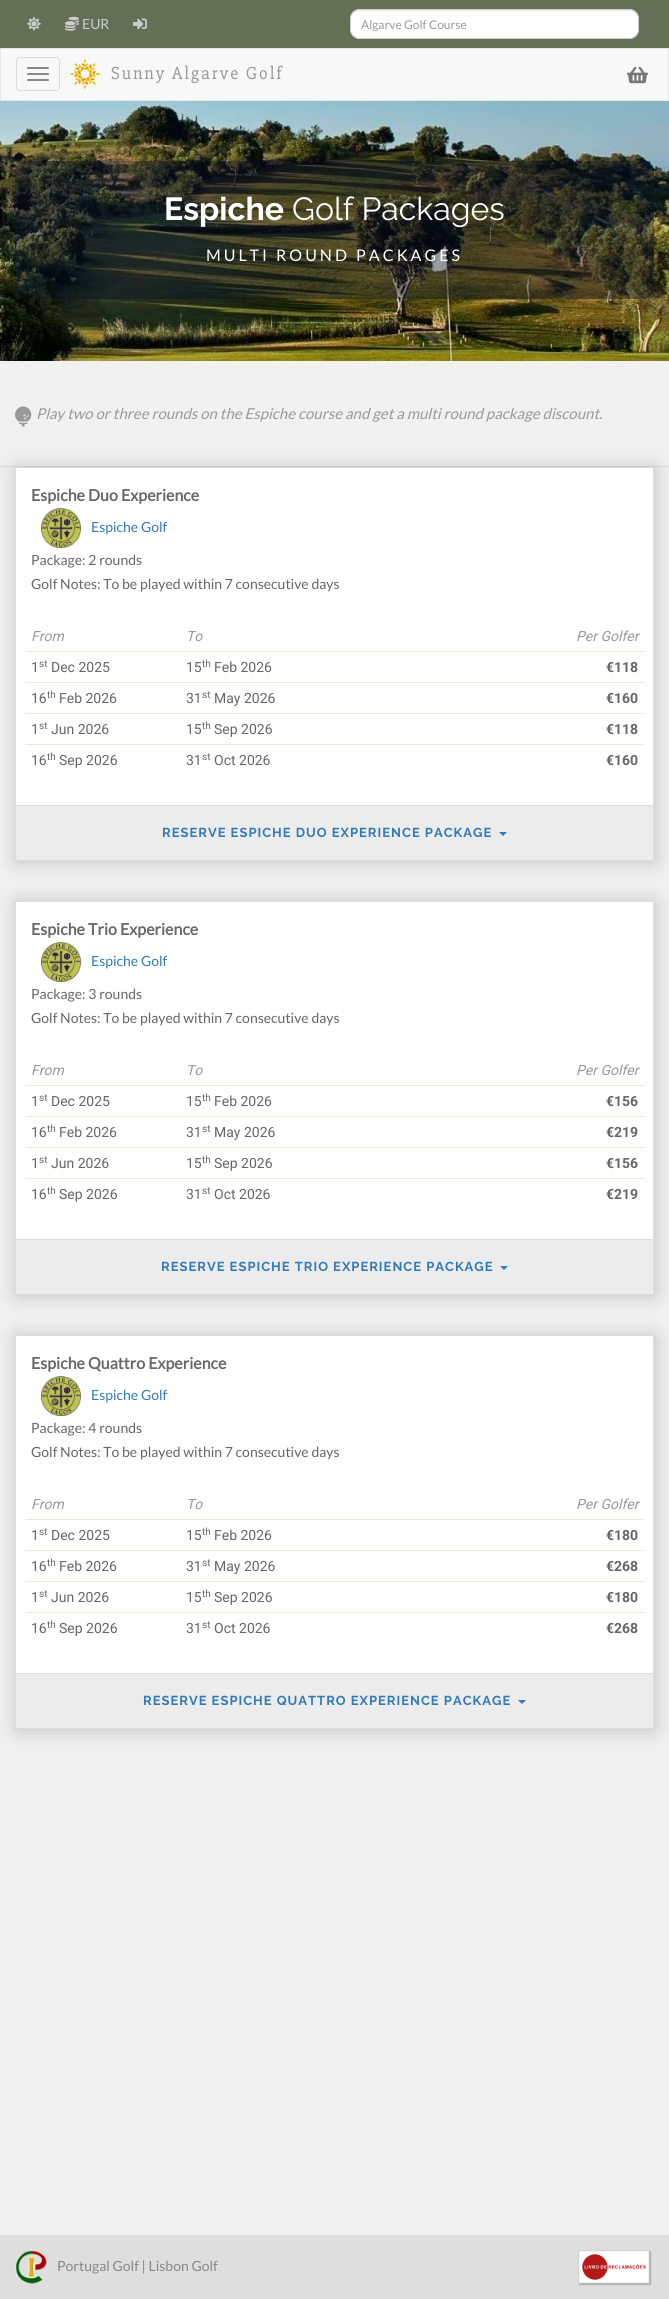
#include <cairo.h>
#include <math.h>
#include <stddef.h>


static void rgb(cairo_t *cr, int r, int g, int b)
{
	cairo_set_source_rgb(cr, r / 255.0, g / 255.0, b / 255.0);
}

static void face(cairo_t *cr, const char *family, double size, int italic, int bold)
{
	cairo_select_font_face(cr, family, italic ? CAIRO_FONT_SLANT_ITALIC : CAIRO_FONT_SLANT_NORMAL,
		bold ? CAIRO_FONT_WEIGHT_BOLD : CAIRO_FONT_WEIGHT_NORMAL);
	cairo_set_font_size(cr, size);
}

static void label(cairo_t *cr, double x, double y, const char *s)
{
	cairo_move_to(cr, x, y);
	cairo_show_text(cr, s);
}

static void tracked(cairo_t *cr, double x, double y, const char *s, double letter, double word)
{
	cairo_move_to(cr, x, y);
	while (*s) {
		char ch[5] = {0};
		int n = 0;
		do ch[n++] = *s++; while ((*s & 0xC0) == 0x80);
		cairo_show_text(cr, ch);
		cairo_rel_move_to(cr, letter + word * (*ch == ' '), 0);
	}
}

static void rect(cairo_t *cr, double x, double y, double w, double h)
{
	cairo_rectangle(cr, x, y, w, h);
	cairo_fill(cr);
}

static void rrect(cairo_t *cr, double x, double y, double w, double h, double r)
{
	cairo_new_sub_path(cr);
	cairo_arc(cr, x + w - r, y + h - r, r, 0, M_PI / 2);
	cairo_arc(cr, x + r, y + h - r, r, M_PI / 2, M_PI);
	cairo_arc(cr, x + r, y + r, r, M_PI, 1.5 * M_PI);
	cairo_arc(cr, x + w - r, y + r, r, 1.5 * M_PI, 2 * M_PI);
	cairo_close_path(cr);
}

static void soft_shadow(cairo_t *cr, double x, double y, double w, double h, double r, double blur, double alpha)
{
	cairo_push_group_with_content(cr, CAIRO_CONTENT_ALPHA);
	cairo_set_operator(cr, CAIRO_OPERATOR_SOURCE);
	for (int i = 15; i >= -15 && fmin(w, h) + blur * i / 3 > 0; i -= 2) {
		double e = blur * i / 6;
		cairo_set_source_rgba(cr, 0, 0, 0, alpha * erfc((i - 1) / 8.5) / 2);
		rrect(cr, x - e, y - e, w + 2 * e, h + 2 * e, fmax(0, fmin(r + e + blur * .6, fmin(w, h) / 2 + e)));
		cairo_fill(cr);
	}
	cairo_pattern_t *soft = cairo_pop_group(cr);
	cairo_mask(cr, soft);
	cairo_pattern_destroy(soft);
}

static void image(cairo_t *cr, const char *path, double x, double y, double w, double h)
{
	cairo_surface_t *image = cairo_image_surface_create_from_png(path);
	cairo_save(cr);
	cairo_set_source_surface(cr, image, x, y);
	cairo_rectangle(cr, x, y, w, h);
	cairo_fill(cr);
	cairo_restore(cr);
	cairo_surface_destroy(image);
}

static void draw(cairo_t *cr) {
	rgb(cr, 241, 241, 241);
	cairo_paint(cr);
	rgb(cr, 99, 112, 85);
	rect(cr, 0, 0, 669, 48);
	image(cr, "image0.png", 27, 16, 14, 15);
	image(cr, "image1.png", 65, 16, 14, 15);
	face(cr, "Lato", 14, 0, 0);
	rgb(cr, 204, 204, 204);
	label(cr, 82, 29, "EUR");
	image(cr, "image2.png", 133, 18, 14, 12);
	rgb(cr, 255, 255, 255);
	rrect(cr, 350, 9, 289, 30, 10);
	cairo_fill(cr);
	rgb(cr, 236, 236, 236);
	cairo_new_path(cr);
	cairo_move_to(cr, 360, 11);
	cairo_line_to(cr, 629, 11);
	cairo_curve_to(cr, 634, 11, 638, 15, 638, 20);
	cairo_curve_to(cr, 638, 15, 636, 11, 631, 10);
	cairo_line_to(cr, 360, 10);
	cairo_curve_to(cr, 354, 10, 351, 15, 351, 20);
	cairo_curve_to(cr, 351, 15, 355, 11, 360, 11);
	cairo_close_path(cr);
	cairo_fill(cr);
	rrect(cr, 350.5, 9.5, 288, 29, 9.5);
	rgb(cr, 204, 204, 204);
	cairo_set_line_width(cr, 1);
	cairo_stroke(cr);
	face(cr, "Lato", 12, 0, 0);
	rgb(cr, 153, 153, 153);
	label(cr, 361, 29, "Algarve Golf Course");
	rgb(cr, 248, 248, 248);
	cairo_rectangle(cr, 0.5, 48.5, 668, 52);
	cairo_fill_preserve(cr);
	rgb(cr, 231, 231, 231);
	cairo_stroke(cr);
	rrect(cr, 16.5, 57.5, 43, 33, 3.5);
	rgb(cr, 221, 221, 221);
	cairo_stroke(cr);
	rgb(cr, 136, 136, 136);
	rrect(cr, 27, 67, 22, 2, 1);
	cairo_fill(cr);
	rrect(cr, 27, 73, 22, 2, 1);
	cairo_fill(cr);
	rrect(cr, 27, 79, 22, 2, 1);
	cairo_fill(cr);
	image(cr, "image3.png", 70, 59, 30, 30);
	face(cr, "Slabo 27px", 18, 0, 0);
	rgb(cr, 153, 153, 153);
	tracked(cr, 111, 79, "Sunny Algarve Golf", 2, 0);
	image(cr, "image4.png", 627, 66, 21, 18);
	image(cr, "image5.png", 0, 101, 669, 260);
	cairo_set_source_rgba(cr, 0.02, 0.055, 0.153, 0.4);
	rrect(cr, 15, 161, 639, 138, 10);
	cairo_fill(cr);
	face(cr, "Raleway", 32, 0, 1);
	rgb(cr, 255, 255, 255);
	label(cr, 164, 220, "Espiche");
	face(cr, "Raleway", 32, 0, 0);
	label(cr, 292, 220, "Golf Packages");
	face(cr, "Lato", 16, 0, 0);
	tracked(cr, 206, 261, "MULTI ROUND PACKAGES", 3, 0);
	rgb(cr, 221, 221, 221);
	rect(cr, 0, 466, 669, 1);
	image(cr, "image6.png", 15, 406, 17, 21);
	face(cr, "Lato", 15, 1, 0);
	rgb(cr, 153, 153, 153);
	label(cr, 36, 419, "Play two or three rounds on the Espiche course and get a multi round package discount.");
	rgb(cr, 0, 0, 0);
	soft_shadow(cr, 16, 468, 639, 394, 0, 10, 0.2);
	rgb(cr, 255, 255, 255);
	rect(cr, 16, 468, 637, 337);
	cairo_rectangle(cr, 15.5, 467.5, 638, 393);
	rgb(cr, 220, 220, 220);
	cairo_stroke(cr);
	face(cr, "Lato", 16, 0, 1);
	rgb(cr, 102, 102, 102);
	label(cr, 31, 501, "Espiche Duo Experience");
	image(cr, "image7.png", 41, 508, 40, 40);
	face(cr, "Lato", 14, 0, 0);
	rgb(cr, 51, 122, 183);
	label(cr, 91, 532, "Espiche Golf");
	rgb(cr, 102, 102, 102);
	label(cr, 31, 565, "Package: 2 rounds");
	label(cr, 31, 589, "Golf Notes: To be played within 7 consecutive days");
	face(cr, "Roboto", 14, 1, 0);
	rgb(cr, 153, 153, 153);
	label(cr, 31, 641, "From");
	label(cr, 186, 641, "To");
	label(cr, 576, 641, "Per Golfer");
	face(cr, "Roboto", 14, 0, 0);
	rgb(cr, 102, 102, 102);
	label(cr, 31, 672, "1");
	face(cr, "Roboto", 10, 0, 0);
	label(cr, 39, 667, "st");
	face(cr, "Roboto", 14, 0, 0);
	label(cr, 51, 672, "Dec 2025");
	label(cr, 186, 672, "15");
	face(cr, "Roboto", 10, 0, 0);
	label(cr, 202, 667, "th");
	face(cr, "Roboto", 14, 0, 0);
	label(cr, 214, 672, "Feb 2026");
	rgb(cr, 237, 234, 211);
	rect(cr, 26, 651, 618, 1);
	face(cr, "Roboto", 14, 0, 1);
	rgb(cr, 102, 102, 102);
	label(cr, 606, 672, "€118");
	face(cr, "Roboto", 14, 0, 0);
	label(cr, 31, 703, "16");
	face(cr, "Roboto", 10, 0, 0);
	label(cr, 47, 698, "th");
	face(cr, "Roboto", 14, 0, 0);
	label(cr, 59, 703, "Feb 2026");
	label(cr, 186, 703, "31");
	face(cr, "Roboto", 10, 0, 0);
	label(cr, 202, 698, "st");
	face(cr, "Roboto", 14, 0, 0);
	label(cr, 214, 703, "May 2026");
	rgb(cr, 237, 234, 211);
	rect(cr, 26, 682, 618, 1);
	face(cr, "Roboto", 14, 0, 1);
	rgb(cr, 102, 102, 102);
	label(cr, 606, 703, "€160");
	face(cr, "Roboto", 14, 0, 0);
	label(cr, 31, 734, "1");
	face(cr, "Roboto", 10, 0, 0);
	label(cr, 39, 729, "st");
	face(cr, "Roboto", 14, 0, 0);
	label(cr, 51, 734, "Jun 2026");
	label(cr, 186, 734, "15");
	face(cr, "Roboto", 10, 0, 0);
	label(cr, 202, 729, "th");
	face(cr, "Roboto", 14, 0, 0);
	label(cr, 214, 734, "Sep 2026");
	rgb(cr, 237, 234, 211);
	rect(cr, 26, 713, 618, 1);
	face(cr, "Roboto", 14, 0, 1);
	rgb(cr, 102, 102, 102);
	label(cr, 606, 734, "€118");
	face(cr, "Roboto", 14, 0, 0);
	label(cr, 31, 765, "16");
	face(cr, "Roboto", 10, 0, 0);
	label(cr, 47, 760, "th");
	face(cr, "Roboto", 14, 0, 0);
	label(cr, 59, 765, "Sep 2026");
	label(cr, 186, 765, "31");
	face(cr, "Roboto", 10, 0, 0);
	label(cr, 202, 760, "st");
	face(cr, "Roboto", 14, 0, 0);
	label(cr, 214, 765, "Oct 2026");
	rgb(cr, 237, 234, 211);
	rect(cr, 26, 744, 618, 1);
	face(cr, "Roboto", 14, 0, 1);
	rgb(cr, 102, 102, 102);
	label(cr, 606, 765, "€160");
	rgb(cr, 236, 236, 236);
	rect(cr, 16, 806, 637, 54);
	rgb(cr, 221, 221, 221);
	rect(cr, 16, 805, 637, 1);
	face(cr, "Raleway", 13, 0, 1);
	rgb(cr, 51, 122, 183);
	tracked(cr, 162, 837, "RESERVE ESPICHE DUO EXPERIENCE PACKAGE", 1, 0);
	cairo_new_path(cr);
	cairo_move_to(cr, 499, 832);
	cairo_line_to(cr, 507, 832);
	cairo_line_to(cr, 503, 836);
	cairo_close_path(cr);
	cairo_fill(cr);
	rgb(cr, 0, 0, 0);
	soft_shadow(cr, 16, 902, 639, 394, 0, 10, 0.2);
	rgb(cr, 255, 255, 255);
	rect(cr, 16, 902, 637, 337);
	cairo_rectangle(cr, 15.5, 901.5, 638, 393);
	rgb(cr, 220, 220, 220);
	cairo_stroke(cr);
	face(cr, "Lato", 16, 0, 1);
	rgb(cr, 102, 102, 102);
	label(cr, 31, 935, "Espiche Trio Experience");
	image(cr, "image8.png", 41, 942, 40, 40);
	face(cr, "Lato", 14, 0, 0);
	rgb(cr, 51, 122, 183);
	label(cr, 91, 966, "Espiche Golf");
	rgb(cr, 102, 102, 102);
	label(cr, 31, 999, "Package: 3 rounds");
	label(cr, 31, 1023, "Golf Notes: To be played within 7 consecutive days");
	face(cr, "Roboto", 14, 1, 0);
	rgb(cr, 153, 153, 153);
	label(cr, 31, 1075, "From");
	label(cr, 186, 1075, "To");
	label(cr, 576, 1075, "Per Golfer");
	face(cr, "Roboto", 14, 0, 0);
	rgb(cr, 102, 102, 102);
	label(cr, 31, 1106, "1");
	face(cr, "Roboto", 10, 0, 0);
	label(cr, 39, 1101, "st");
	face(cr, "Roboto", 14, 0, 0);
	label(cr, 51, 1106, "Dec 2025");
	label(cr, 186, 1106, "15");
	face(cr, "Roboto", 10, 0, 0);
	label(cr, 202, 1101, "th");
	face(cr, "Roboto", 14, 0, 0);
	label(cr, 214, 1106, "Feb 2026");
	rgb(cr, 237, 234, 211);
	rect(cr, 26, 1085, 618, 1);
	face(cr, "Roboto", 14, 0, 1);
	rgb(cr, 102, 102, 102);
	label(cr, 606, 1106, "€156");
	face(cr, "Roboto", 14, 0, 0);
	label(cr, 31, 1137, "16");
	face(cr, "Roboto", 10, 0, 0);
	label(cr, 47, 1132, "th");
	face(cr, "Roboto", 14, 0, 0);
	label(cr, 59, 1137, "Feb 2026");
	label(cr, 186, 1137, "31");
	face(cr, "Roboto", 10, 0, 0);
	label(cr, 202, 1132, "st");
	face(cr, "Roboto", 14, 0, 0);
	label(cr, 214, 1137, "May 2026");
	rgb(cr, 237, 234, 211);
	rect(cr, 26, 1116, 618, 1);
	face(cr, "Roboto", 14, 0, 1);
	rgb(cr, 102, 102, 102);
	label(cr, 606, 1137, "€219");
	face(cr, "Roboto", 14, 0, 0);
	label(cr, 31, 1168, "1");
	face(cr, "Roboto", 10, 0, 0);
	label(cr, 39, 1163, "st");
	face(cr, "Roboto", 14, 0, 0);
	label(cr, 51, 1168, "Jun 2026");
	label(cr, 186, 1168, "15");
	face(cr, "Roboto", 10, 0, 0);
	label(cr, 202, 1163, "th");
	face(cr, "Roboto", 14, 0, 0);
	label(cr, 214, 1168, "Sep 2026");
	rgb(cr, 237, 234, 211);
	rect(cr, 26, 1147, 618, 1);
	face(cr, "Roboto", 14, 0, 1);
	rgb(cr, 102, 102, 102);
	label(cr, 606, 1168, "€156");
	face(cr, "Roboto", 14, 0, 0);
	label(cr, 31, 1199, "16");
	face(cr, "Roboto", 10, 0, 0);
	label(cr, 47, 1194, "th");
	face(cr, "Roboto", 14, 0, 0);
	label(cr, 59, 1199, "Sep 2026");
	label(cr, 186, 1199, "31");
	face(cr, "Roboto", 10, 0, 0);
	label(cr, 202, 1194, "st");
	face(cr, "Roboto", 14, 0, 0);
	label(cr, 214, 1199, "Oct 2026");
	rgb(cr, 237, 234, 211);
	rect(cr, 26, 1178, 618, 1);
	face(cr, "Roboto", 14, 0, 1);
	rgb(cr, 102, 102, 102);
	label(cr, 606, 1199, "€219");
	rgb(cr, 236, 236, 236);
	rect(cr, 16, 1240, 637, 54);
	rgb(cr, 221, 221, 221);
	rect(cr, 16, 1239, 637, 1);
	face(cr, "Raleway", 13, 0, 1);
	rgb(cr, 51, 122, 183);
	tracked(cr, 161, 1271, "RESERVE ESPICHE TRIO EXPERIENCE PACKAGE", 1, 0);
	cairo_new_path(cr);
	cairo_move_to(cr, 500, 1266);
	cairo_line_to(cr, 508, 1266);
	cairo_line_to(cr, 504, 1270);
	cairo_close_path(cr);
	cairo_fill(cr);
	rgb(cr, 0, 0, 0);
	soft_shadow(cr, 16, 1336, 639, 394, 0, 10, 0.2);
	rgb(cr, 255, 255, 255);
	rect(cr, 16, 1336, 637, 337);
	cairo_rectangle(cr, 15.5, 1335.5, 638, 393);
	rgb(cr, 220, 220, 220);
	cairo_stroke(cr);
	face(cr, "Lato", 16, 0, 1);
	rgb(cr, 102, 102, 102);
	label(cr, 31, 1369, "Espiche Quattro Experience");
	image(cr, "image9.png", 41, 1376, 40, 40);
	face(cr, "Lato", 14, 0, 0);
	rgb(cr, 51, 122, 183);
	label(cr, 91, 1400, "Espiche Golf");
	rgb(cr, 102, 102, 102);
	label(cr, 31, 1433, "Package: 4 rounds");
	label(cr, 31, 1457, "Golf Notes: To be played within 7 consecutive days");
	face(cr, "Roboto", 14, 1, 0);
	rgb(cr, 153, 153, 153);
	label(cr, 31, 1509, "From");
	label(cr, 186, 1509, "To");
	label(cr, 576, 1509, "Per Golfer");
	face(cr, "Roboto", 14, 0, 0);
	rgb(cr, 102, 102, 102);
	label(cr, 31, 1540, "1");
	face(cr, "Roboto", 10, 0, 0);
	label(cr, 39, 1535, "st");
	face(cr, "Roboto", 14, 0, 0);
	label(cr, 51, 1540, "Dec 2025");
	label(cr, 186, 1540, "15");
	face(cr, "Roboto", 10, 0, 0);
	label(cr, 202, 1535, "th");
	face(cr, "Roboto", 14, 0, 0);
	label(cr, 214, 1540, "Feb 2026");
	rgb(cr, 237, 234, 211);
	rect(cr, 26, 1519, 618, 1);
	face(cr, "Roboto", 14, 0, 1);
	rgb(cr, 102, 102, 102);
	label(cr, 606, 1540, "€180");
	face(cr, "Roboto", 14, 0, 0);
	label(cr, 31, 1571, "16");
	face(cr, "Roboto", 10, 0, 0);
	label(cr, 47, 1566, "th");
	face(cr, "Roboto", 14, 0, 0);
	label(cr, 59, 1571, "Feb 2026");
	label(cr, 186, 1571, "31");
	face(cr, "Roboto", 10, 0, 0);
	label(cr, 202, 1566, "st");
	face(cr, "Roboto", 14, 0, 0);
	label(cr, 214, 1571, "May 2026");
	rgb(cr, 237, 234, 211);
	rect(cr, 26, 1550, 618, 1);
	face(cr, "Roboto", 14, 0, 1);
	rgb(cr, 102, 102, 102);
	label(cr, 606, 1571, "€268");
	face(cr, "Roboto", 14, 0, 0);
	label(cr, 31, 1602, "1");
	face(cr, "Roboto", 10, 0, 0);
	label(cr, 39, 1597, "st");
	face(cr, "Roboto", 14, 0, 0);
	label(cr, 51, 1602, "Jun 2026");
	label(cr, 186, 1602, "15");
	face(cr, "Roboto", 10, 0, 0);
	label(cr, 202, 1597, "th");
	face(cr, "Roboto", 14, 0, 0);
	label(cr, 214, 1602, "Sep 2026");
	rgb(cr, 237, 234, 211);
	rect(cr, 26, 1581, 618, 1);
	face(cr, "Roboto", 14, 0, 1);
	rgb(cr, 102, 102, 102);
	label(cr, 606, 1602, "€180");
	face(cr, "Roboto", 14, 0, 0);
	label(cr, 31, 1633, "16");
	face(cr, "Roboto", 10, 0, 0);
	label(cr, 47, 1628, "th");
	face(cr, "Roboto", 14, 0, 0);
	label(cr, 59, 1633, "Sep 2026");
	label(cr, 186, 1633, "31");
	face(cr, "Roboto", 10, 0, 0);
	label(cr, 202, 1628, "st");
	face(cr, "Roboto", 14, 0, 0);
	label(cr, 214, 1633, "Oct 2026");
	rgb(cr, 237, 234, 211);
	rect(cr, 26, 1612, 618, 1);
	face(cr, "Roboto", 14, 0, 1);
	rgb(cr, 102, 102, 102);
	label(cr, 606, 1633, "€268");
	rgb(cr, 236, 236, 236);
	rect(cr, 16, 1674, 637, 54);
	rgb(cr, 221, 221, 221);
	rect(cr, 16, 1673, 637, 1);
	face(cr, "Raleway", 13, 0, 1);
	rgb(cr, 51, 122, 183);
	tracked(cr, 143, 1705, "RESERVE ESPICHE QUATTRO EXPERIENCE PACKAGE", 1, 0);
	cairo_new_path(cr);
	cairo_move_to(cr, 518, 1700);
	cairo_line_to(cr, 526, 1700);
	cairo_line_to(cr, 522, 1704);
	cairo_close_path(cr);
	cairo_fill(cr);
	rgb(cr, 222, 222, 222);
	rect(cr, 0, 2235, 669, 64);
	image(cr, "image10.png", 15, 2250, 32, 34);
	face(cr, "Lato", 14, 0, 0);
	rgb(cr, 136, 136, 136);
	label(cr, 57, 2271, "Portugal Golf | Lisbon Golf");
	rgb(cr, 180, 180, 180);
	soft_shadow(cr, 579, 2251, 72, 34, 0, 0.5, 1);
	cairo_rectangle(cr, 579.5, 2251.5, 69, 31);
	rgb(cr, 244, 244, 244);
	cairo_stroke(cr);
	image(cr, "image11.png", 580, 2252, 68, 30);
}

int main(void) {
	cairo_surface_t *surface = cairo_image_surface_create(CAIRO_FORMAT_RGB24, 669, 2299);
	cairo_t *cr = cairo_create(surface);
	cairo_font_options_t *options = cairo_font_options_create();
	cairo_font_options_set_hint_metrics(options, CAIRO_HINT_METRICS_OFF);
	cairo_font_options_set_hint_style(options, CAIRO_HINT_STYLE_NONE);
	cairo_set_font_options(cr, options);
	cairo_set_miter_limit(cr, 4);
	draw(cr);
	cairo_surface_write_to_png(surface, "render.png");
	cairo_font_options_destroy(options);
	cairo_destroy(cr);
	cairo_surface_destroy(surface);
	return 0;
}
